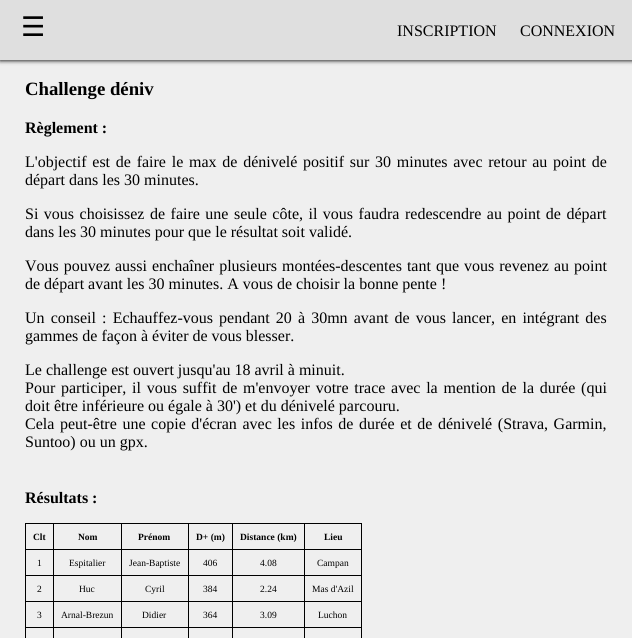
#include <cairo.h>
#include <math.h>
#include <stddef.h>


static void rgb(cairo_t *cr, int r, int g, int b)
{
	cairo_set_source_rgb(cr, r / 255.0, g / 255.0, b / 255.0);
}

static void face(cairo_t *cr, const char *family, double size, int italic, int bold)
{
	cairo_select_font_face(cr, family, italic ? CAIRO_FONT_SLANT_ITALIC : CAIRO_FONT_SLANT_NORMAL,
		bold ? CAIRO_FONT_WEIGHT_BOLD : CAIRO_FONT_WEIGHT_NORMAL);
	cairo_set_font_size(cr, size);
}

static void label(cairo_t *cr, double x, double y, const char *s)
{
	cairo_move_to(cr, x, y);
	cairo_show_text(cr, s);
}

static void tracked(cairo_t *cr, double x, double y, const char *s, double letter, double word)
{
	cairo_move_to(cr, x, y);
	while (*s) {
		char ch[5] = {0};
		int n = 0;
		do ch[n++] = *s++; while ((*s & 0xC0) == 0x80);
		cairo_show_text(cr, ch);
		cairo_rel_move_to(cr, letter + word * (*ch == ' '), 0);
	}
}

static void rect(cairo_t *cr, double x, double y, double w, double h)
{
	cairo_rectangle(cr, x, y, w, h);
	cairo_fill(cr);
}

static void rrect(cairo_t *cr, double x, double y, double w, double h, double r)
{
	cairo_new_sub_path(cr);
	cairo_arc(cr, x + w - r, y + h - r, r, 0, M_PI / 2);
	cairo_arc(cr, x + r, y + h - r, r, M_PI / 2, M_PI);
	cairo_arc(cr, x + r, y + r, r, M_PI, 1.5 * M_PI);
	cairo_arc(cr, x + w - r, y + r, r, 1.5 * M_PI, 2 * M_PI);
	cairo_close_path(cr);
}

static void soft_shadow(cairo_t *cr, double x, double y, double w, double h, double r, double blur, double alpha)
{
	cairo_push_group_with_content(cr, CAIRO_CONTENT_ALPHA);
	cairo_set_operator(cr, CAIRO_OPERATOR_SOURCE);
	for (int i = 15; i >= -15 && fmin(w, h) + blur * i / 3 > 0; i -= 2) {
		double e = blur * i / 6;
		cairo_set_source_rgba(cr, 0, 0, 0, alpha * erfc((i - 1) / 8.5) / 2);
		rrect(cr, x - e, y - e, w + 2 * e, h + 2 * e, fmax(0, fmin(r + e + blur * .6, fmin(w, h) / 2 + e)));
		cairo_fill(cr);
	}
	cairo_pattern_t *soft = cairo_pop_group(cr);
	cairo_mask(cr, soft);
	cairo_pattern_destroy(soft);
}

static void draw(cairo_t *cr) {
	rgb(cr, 239, 239, 239);
	cairo_paint(cr);
	rgb(cr, 40, 40, 40);
	soft_shadow(cr, 0, 1, 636, 60, 0, 2, 1);
	rgb(cr, 223, 223, 223);
	rect(cr, 0, 0, 632, 60);
	face(cr, "DejaVu Sans", 27, 0, 0);
	rgb(cr, 0, 0, 0);
	label(cr, 21, 36, "☰");
	face(cr, "Liberation Serif", 16, 0, 0);
	label(cr, 397, 36, "INSCRIPTION");
	label(cr, 520, 36, "CONNEXION");
	face(cr, "Liberation Serif", 18.75, 0, 1);
	label(cr, 25, 95, "Challenge déniv");
	face(cr, "Liberation Serif", 16, 0, 1);
	label(cr, 25, 133, "Règlement :");
	face(cr, "Liberation Serif", 16, 0, 0);
	tracked(cr, 25, 167, "L'objectif est de faire le max de dénivelé positif sur 30 minutes avec retour au point de", 0, 1.75);
	label(cr, 25, 185, "départ dans les 30 minutes.");
	tracked(cr, 25, 219, "Si vous choisissez de faire une seule côte, il vous faudra redescendre au point de départ", 0, 1.5);
	label(cr, 25, 237, "dans les 30 minutes pour que le résultat soit validé.");
	tracked(cr, 25, 271, "Vous pouvez aussi enchaîner plusieurs montées-descentes tant que vous revenez au point", 0, 1);
	label(cr, 25, 289, "de départ avant les 30 minutes. A vous de choisir la bonne pente !");
	tracked(cr, 25, 323, "Un conseil : Echauffez-vous pendant 20 à 30mn avant de vous lancer, en intégrant des", 0, 2.1);
	label(cr, 25, 341, "gammes de façon à éviter de vous blesser.");
	label(cr, 25, 375, "Le challenge est ouvert jusqu'au 18 avril à minuit.");
	tracked(cr, 25, 393, "Pour participer, il vous suffit de m'envoyer votre trace avec la mention de la durée (qui", 0, 1.75);
	label(cr, 25, 411, "doit être inférieure ou égale à 30') et du dénivelé parcouru.");
	tracked(cr, 25, 429, "Cela peut-être une copie d'écran avec les infos de durée et de dénivelé (Strava, Garmin,", 0, 1.6);
	label(cr, 25, 447, "Suntoo) ou un gpx.");
	face(cr, "Liberation Serif", 16, 0, 1);
	label(cr, 25, 503, "Résultats :");
	rect(cr, 25, 627, 337, 1);
	rect(cr, 361, 627, 1, 11);
	rect(cr, 25, 627, 1, 11);
	rect(cr, 25, 523, 337, 1);
	rect(cr, 25, 549, 337, 1);
	rect(cr, 25, 575, 337, 1);
	rect(cr, 25, 601, 337, 1);
	rect(cr, 53, 523, 1, 115);
	rect(cr, 121, 523, 1, 115);
	rect(cr, 188, 523, 1, 115);
	rect(cr, 232, 523, 1, 115);
	rect(cr, 304, 523, 1, 115);
	rect(cr, 361, 601, 1, 27);
	rect(cr, 361, 575, 1, 27);
	rect(cr, 361, 549, 1, 27);
	rect(cr, 361, 523, 1, 27);
	rect(cr, 25, 601, 1, 27);
	rect(cr, 25, 575, 1, 27);
	rect(cr, 25, 549, 1, 27);
	rect(cr, 25, 523, 1, 27);
	face(cr, "Liberation Serif", 9.5, 0, 1);
	label(cr, 33, 540, "Clt");
	label(cr, 78, 540, "Nom");
	label(cr, 138, 540, "Prénom");
	label(cr, 196, 540, "D+ (m)");
	label(cr, 240, 540, "Distance (km)");
	label(cr, 324, 540, "Lieu");
	face(cr, "Liberation Serif", 9.5, 0, 0);
	label(cr, 37, 566, "1");
	label(cr, 69, 566, "Espitalier");
	label(cr, 129, 566, "Jean-Baptiste");
	label(cr, 203, 566, "406");
	label(cr, 260, 566, "4.08");
	label(cr, 317, 566, "Campan");
	label(cr, 37, 592, "2");
	label(cr, 79, 592, "Huc");
	label(cr, 145, 592, "Cyril");
	label(cr, 203, 592, "384");
	label(cr, 260, 592, "2.24");
	label(cr, 312, 592, "Mas d'Azil");
	label(cr, 37, 618, "3");
	label(cr, 61, 618, "Arnal-Brezun");
	label(cr, 142, 618, "Didier");
	label(cr, 203, 618, "364");
	label(cr, 260, 618, "3.09");
	label(cr, 318, 618, "Luchon");
}

int main(void) {
	cairo_surface_t *surface = cairo_image_surface_create(CAIRO_FORMAT_RGB24, 632, 638);
	cairo_t *cr = cairo_create(surface);
	cairo_font_options_t *options = cairo_font_options_create();
	cairo_font_options_set_hint_metrics(options, CAIRO_HINT_METRICS_OFF);
	cairo_font_options_set_hint_style(options, CAIRO_HINT_STYLE_NONE);
	cairo_set_font_options(cr, options);
	cairo_set_miter_limit(cr, 4);
	draw(cr);
	cairo_surface_write_to_png(surface, "render.png");
	cairo_font_options_destroy(options);
	cairo_destroy(cr);
	cairo_surface_destroy(surface);
	return 0;
}
